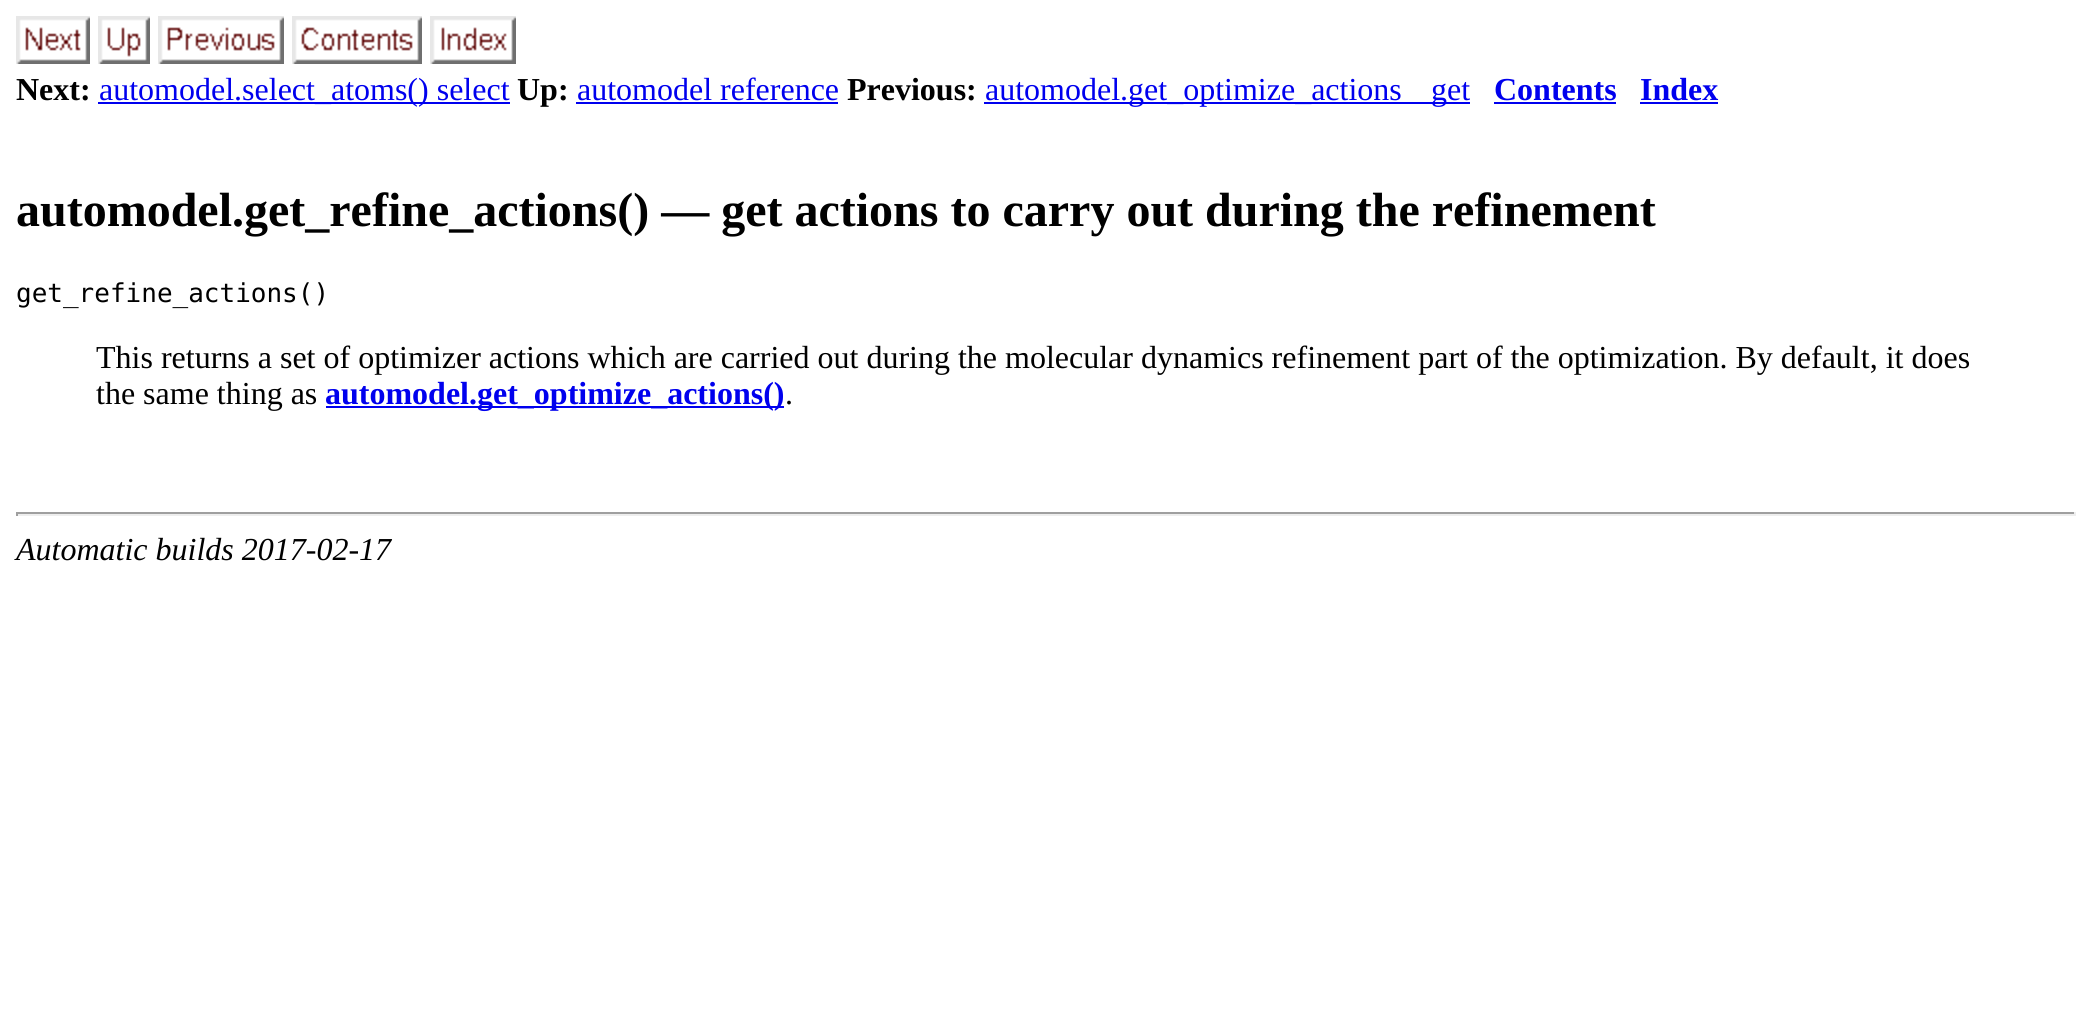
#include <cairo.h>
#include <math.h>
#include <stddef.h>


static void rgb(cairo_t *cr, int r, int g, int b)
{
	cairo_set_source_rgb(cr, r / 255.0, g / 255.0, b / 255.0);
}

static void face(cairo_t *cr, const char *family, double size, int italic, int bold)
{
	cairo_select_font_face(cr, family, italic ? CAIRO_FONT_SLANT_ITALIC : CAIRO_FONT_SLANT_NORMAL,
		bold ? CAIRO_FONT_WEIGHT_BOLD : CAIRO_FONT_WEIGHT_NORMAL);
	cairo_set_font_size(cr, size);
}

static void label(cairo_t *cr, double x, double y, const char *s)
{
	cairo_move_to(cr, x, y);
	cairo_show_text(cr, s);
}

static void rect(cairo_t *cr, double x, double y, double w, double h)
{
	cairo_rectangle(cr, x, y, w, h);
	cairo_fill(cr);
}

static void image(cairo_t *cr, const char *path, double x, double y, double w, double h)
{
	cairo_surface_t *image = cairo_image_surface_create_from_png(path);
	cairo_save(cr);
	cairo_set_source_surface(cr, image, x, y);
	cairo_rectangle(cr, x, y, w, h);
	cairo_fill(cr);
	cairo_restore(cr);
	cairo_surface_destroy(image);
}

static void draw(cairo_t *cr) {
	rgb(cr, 255, 255, 255);
	cairo_paint(cr);
	image(cr, "image0.png", 16, 16, 74, 48);
	image(cr, "image1.png", 98, 16, 52, 48);
	image(cr, "image2.png", 158, 16, 126, 48);
	image(cr, "image3.png", 292, 16, 130, 48);
	image(cr, "image4.png", 430, 16, 86, 48);
	face(cr, "Liberation Serif", 32, 0, 1);
	rgb(cr, 0, 0, 0);
	label(cr, 16, 100, "Next:");
	rgb(cr, 0, 0, 238);
	rect(cr, 98, 102, 412, 2);
	face(cr, "Liberation Serif", 32, 0, 0);
	label(cr, 99, 100, "automodel.select_atoms() select");
	face(cr, "Liberation Serif", 32, 0, 1);
	rgb(cr, 0, 0, 0);
	label(cr, 517, 100, "Up:");
	face(cr, "Liberation Serif", 32, 0, 0);
	rgb(cr, 0, 0, 238);
	label(cr, 577, 100, "automodel reference");
	rect(cr, 576, 102, 262, 2);
	face(cr, "Liberation Serif", 32, 0, 1);
	rgb(cr, 0, 0, 0);
	label(cr, 847, 100, "Previous:");
	rgb(cr, 0, 0, 238);
	rect(cr, 984, 102, 486, 2);
	face(cr, "Liberation Serif", 32, 0, 0);
	label(cr, 985, 100, "automodel.get_optimize_actions");
	label(cr, 1431, 100, "get");
	face(cr, "Liberation Serif", 32, 0, 1);
	label(cr, 1494, 100, "Contents");
	rect(cr, 1494, 102, 122, 2);
	label(cr, 1640, 100, "Index");
	rect(cr, 1640, 102, 78, 2);
	face(cr, "Liberation Serif", 48, 0, 1);
	rgb(cr, 0, 0, 0);
	label(cr, 16, 226, "automodel.get_refine_actions() — get actions to carry out during the refinement");
	face(cr, "DejaVu Sans Mono", 26, 0, 0);
	label(cr, 16, 302, "get_refine_actions()");
	face(cr, "Liberation Serif", 32, 0, 0);
	label(cr, 96, 368, "This returns a set of optimizer actions which are carried out during the molecular dynamics refinement part of the optimization. By default, it does");
	label(cr, 96, 404, "the same thing as");
	rgb(cr, 0, 0, 238);
	rect(cr, 326, 406, 458, 2);
	face(cr, "Liberation Serif", 32, 0, 1);
	label(cr, 325, 404, "automodel.get_optimize_actions()");
	face(cr, "Liberation Serif", 32, 0, 0);
	rgb(cr, 0, 0, 0);
	label(cr, 785, 404, ".");
	rgb(cr, 159, 159, 159);
	rect(cr, 16, 512, 2060, 2);
	rgb(cr, 238, 238, 238);
	rect(cr, 2074, 512, 2, 4);
	rect(cr, 16, 514, 2060, 2);
	rgb(cr, 159, 159, 159);
	rect(cr, 16, 512, 2, 4);
	face(cr, "Liberation Serif", 32, 1, 0);
	rgb(cr, 0, 0, 0);
	label(cr, 16, 560, "Automatic builds 2017-02-17");
}

int main(void) {
	cairo_surface_t *surface = cairo_image_surface_create(CAIRO_FORMAT_RGB24, 2091, 1024);
	cairo_t *cr = cairo_create(surface);
	cairo_font_options_t *options = cairo_font_options_create();
	cairo_font_options_set_hint_metrics(options, CAIRO_HINT_METRICS_OFF);
	cairo_font_options_set_hint_style(options, CAIRO_HINT_STYLE_NONE);
	cairo_set_font_options(cr, options);
	cairo_set_miter_limit(cr, 4);
	draw(cr);
	cairo_surface_write_to_png(surface, "render.png");
	cairo_font_options_destroy(options);
	cairo_destroy(cr);
	cairo_surface_destroy(surface);
	return 0;
}
